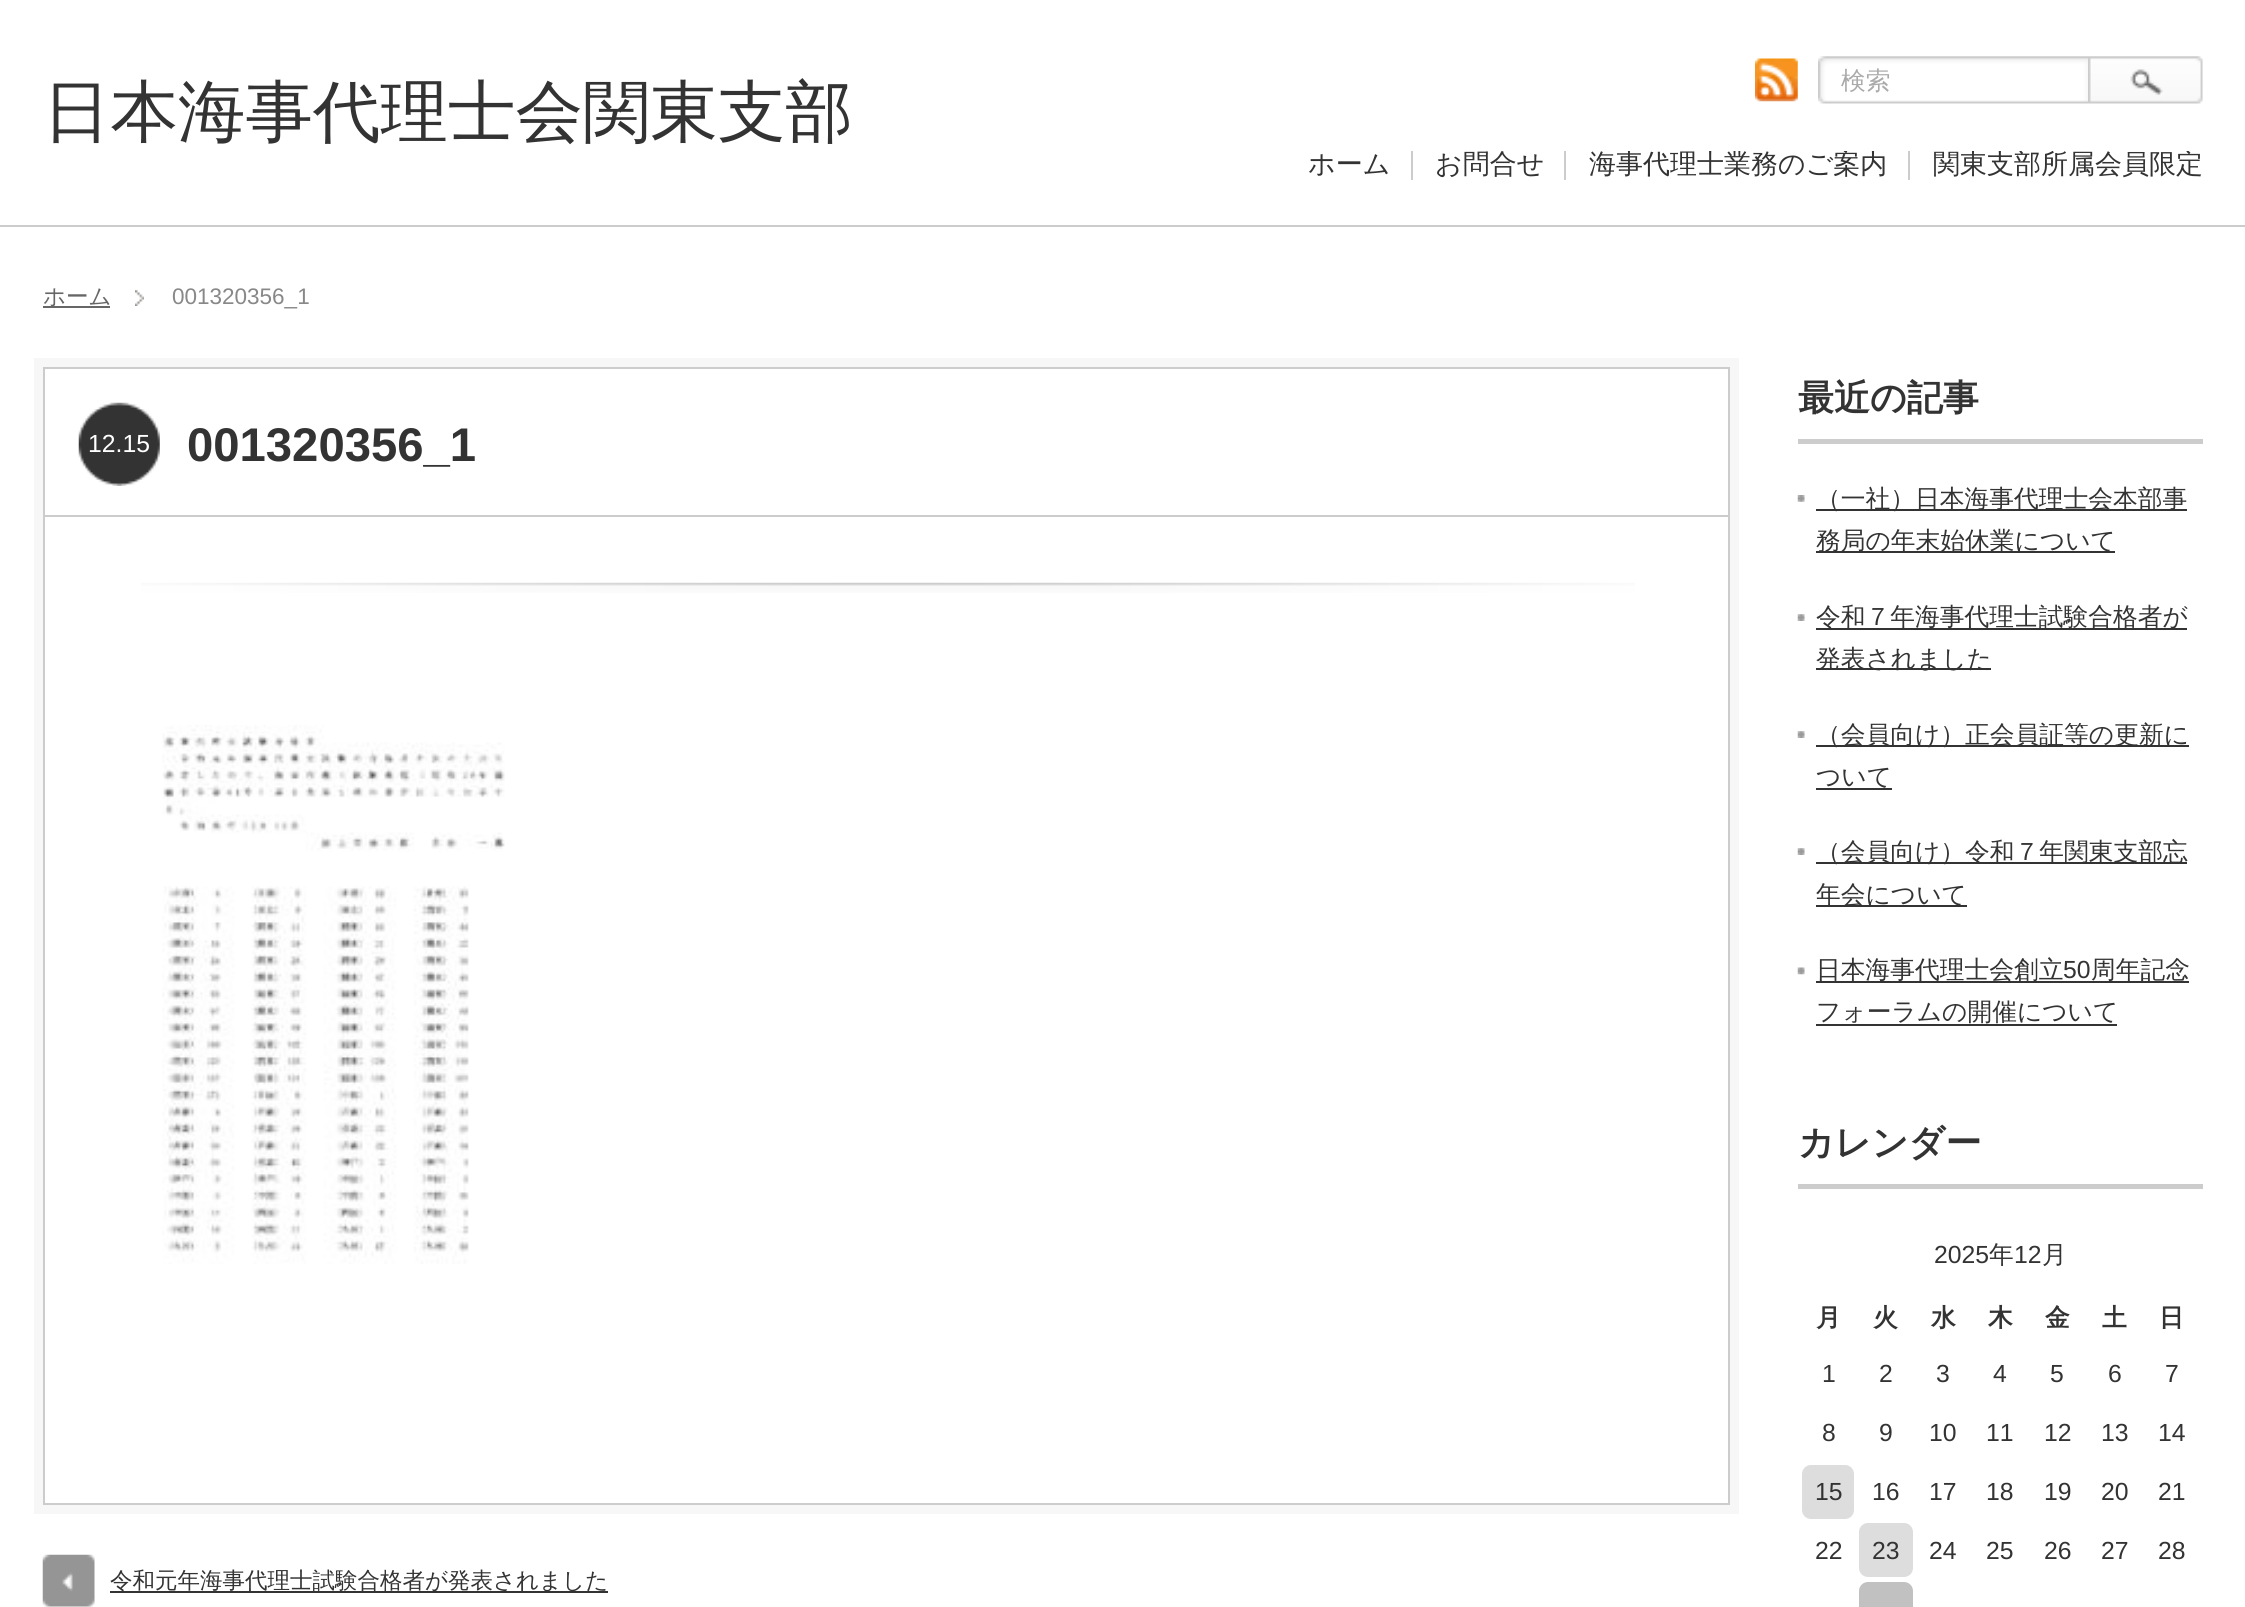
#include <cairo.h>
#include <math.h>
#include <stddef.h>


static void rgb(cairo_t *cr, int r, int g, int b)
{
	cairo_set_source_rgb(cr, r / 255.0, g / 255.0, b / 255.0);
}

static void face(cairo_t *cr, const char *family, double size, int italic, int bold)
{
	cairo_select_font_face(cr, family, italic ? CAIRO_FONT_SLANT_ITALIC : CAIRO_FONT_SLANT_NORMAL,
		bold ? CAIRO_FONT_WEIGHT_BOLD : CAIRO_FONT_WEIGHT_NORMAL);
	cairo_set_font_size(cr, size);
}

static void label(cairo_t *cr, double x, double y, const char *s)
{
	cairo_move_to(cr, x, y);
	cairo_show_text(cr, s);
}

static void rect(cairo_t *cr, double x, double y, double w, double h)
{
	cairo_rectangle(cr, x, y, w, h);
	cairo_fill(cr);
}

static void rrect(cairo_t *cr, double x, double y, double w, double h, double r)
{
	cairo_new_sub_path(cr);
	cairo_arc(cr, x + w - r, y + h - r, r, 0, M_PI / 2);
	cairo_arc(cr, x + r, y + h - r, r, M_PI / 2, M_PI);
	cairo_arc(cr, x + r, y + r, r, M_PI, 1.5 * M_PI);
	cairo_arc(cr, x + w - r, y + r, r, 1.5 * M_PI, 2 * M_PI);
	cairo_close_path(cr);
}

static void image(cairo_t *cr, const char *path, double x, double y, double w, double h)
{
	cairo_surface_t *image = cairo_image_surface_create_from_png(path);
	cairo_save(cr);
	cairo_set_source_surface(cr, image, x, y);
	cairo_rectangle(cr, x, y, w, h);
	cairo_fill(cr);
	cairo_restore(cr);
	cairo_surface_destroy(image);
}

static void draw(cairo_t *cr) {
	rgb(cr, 255, 255, 255);
	cairo_paint(cr);
	rgb(cr, 204, 204, 204);
	rect(cr, 0, 225, 2245, 2);
	face(cr, "WenQuanYi Zen Hei Medium", 67.5, 0, 0);
	rgb(cr, 51, 51, 51);
	label(cr, 43, 135, "日本海事代理士会関東支部");
	image(cr, "image0.png", 1755, 58, 43, 44);
	image(cr, "image1.png", 1818, 56, 270, 48);
	face(cr, "WenQuanYi Zen Hei Medium", 24.75, 0, 0);
	rgb(cr, 170, 170, 170);
	label(cr, 1841, 89, "検索");
	image(cr, "image2.png", 2088, 56, 115, 48);
	face(cr, "WenQuanYi Zen Hei Medium", 27, 0, 0);
	rgb(cr, 51, 51, 51);
	label(cr, 1308, 173, "ホーム");
	rgb(cr, 204, 204, 204);
	rect(cr, 1411, 151, 2, 29);
	rgb(cr, 51, 51, 51);
	label(cr, 1435, 173, "お問合せ");
	rgb(cr, 204, 204, 204);
	rect(cr, 1564, 151, 2, 29);
	cairo_save(cr);
	cairo_rectangle(cr, 1285, 151, 918, 29);
	cairo_clip(cr);
	rgb(cr, 51, 51, 51);
	label(cr, 1589, 173, "海事代理士業務のご案内");
	cairo_restore(cr);
	rect(cr, 1908, 151, 2, 29);
	cairo_save(cr);
	cairo_rectangle(cr, 1285, 151, 918, 29);
	cairo_clip(cr);
	rgb(cr, 51, 51, 51);
	label(cr, 1933, 173, "関東支部所属会員限定");
	cairo_restore(cr);
	image(cr, "image3.png", 135, 290, 9, 16);
	rgb(cr, 102, 102, 102);
	rect(cr, 43, 306, 67, 2);
	face(cr, "WenQuanYi Zen Hei Medium", 22.5, 0, 0);
	label(cr, 43, 304, "ホーム");
	face(cr, "Liberation Sans", 22.5, 0, 0);
	rgb(cr, 136, 136, 136);
	label(cr, 172, 304, "001320356_1");
	cairo_rectangle(cr, 38.5, 362.5, 1696, 1147);
	rgb(cr, 247, 247, 247);
	cairo_set_line_width(cr, 9);
	cairo_stroke(cr);
	cairo_rectangle(cr, 44, 368, 1685, 1136);
	rgb(cr, 204, 204, 204);
	cairo_set_line_width(cr, 2);
	cairo_stroke(cr);
	rect(cr, 45, 515, 1683, 2);
	image(cr, "image4.png", 78, 402, 82, 84);
	face(cr, "Liberation Sans", 24.75, 0, 0);
	rgb(cr, 255, 255, 255);
	label(cr, 88, 452, "12.15");
	face(cr, "Liberation Sans", 47.25, 0, 1);
	rgb(cr, 51, 51, 51);
	label(cr, 187, 461, "001320356_1");
	image(cr, "image5.png", 141, 582, 1494, 11);
	image(cr, "image6.png", 162, 725, 343, 539);
	image(cr, "image7.png", 42, 1554, 53, 53);
	rect(cr, 110, 1591, 498, 2);
	face(cr, "WenQuanYi Zen Hei Medium", 22.5, 0, 0);
	label(cr, 110, 1588, "令和元年海事代理士試験合格者が発表されました");
	rgb(cr, 204, 204, 204);
	rect(cr, 1798, 439, 405, 5);
	face(cr, "WenQuanYi Zen Hei", 36, 0, 1);
	rgb(cr, 51, 51, 51);
	label(cr, 1798, 410, "最近の記事");
	image(cr, "image8.png", 1797, 495, 8, 7);
	rect(cr, 1816, 509, 371, 2);
	face(cr, "WenQuanYi Zen Hei Medium", 24.75, 0, 0);
	label(cr, 1816, 507, "（一社）日本海事代理士会本部事");
	rect(cr, 1816, 551, 299, 2);
	label(cr, 1816, 549, "務局の年末始休業について");
	image(cr, "image9.png", 1797, 614, 8, 7);
	rect(cr, 1816, 628, 371, 2);
	label(cr, 1816, 625, "令和７年海事代理士試験合格者が");
	rect(cr, 1816, 668, 175, 2);
	label(cr, 1816, 667, "発表されました");
	image(cr, "image9.png", 1797, 731, 8, 7);
	rect(cr, 1816, 745, 373, 2);
	label(cr, 1816, 743, "（会員向け）正会員証等の更新に");
	label(cr, 1816, 785, "ついて");
	rect(cr, 1816, 788, 76, 2);
	image(cr, "image9.png", 1797, 848, 8, 7);
	rect(cr, 1816, 862, 371, 2);
	label(cr, 1816, 860, "（会員向け）令和７年関東支部忘");
	rect(cr, 1816, 905, 151, 2);
	label(cr, 1816, 903, "年会について");
	image(cr, "image10.png", 1797, 967, 8, 8);
	rect(cr, 1816, 981, 373, 2);
	label(cr, 1816, 978, "日本海事代理士会創立");
	face(cr, "Liberation Sans", 24.75, 0, 0);
	label(cr, 2063, 978, "50");
	face(cr, "WenQuanYi Zen Hei Medium", 24.75, 0, 0);
	label(cr, 2091, 978, "周年記念");
	label(cr, 1816, 1020, "フォーラムの開催について");
	rect(cr, 1816, 1024, 301, 2);
	rgb(cr, 204, 204, 204);
	rect(cr, 1798, 1184, 405, 5);
	face(cr, "WenQuanYi Zen Hei", 36, 0, 1);
	rgb(cr, 51, 51, 51);
	label(cr, 1798, 1155, "カレンダー");
	face(cr, "Liberation Sans", 24.75, 0, 0);
	label(cr, 1934, 1263, "2025");
	face(cr, "WenQuanYi Zen Hei Medium", 24.75, 0, 0);
	label(cr, 1989, 1263, "年");
	face(cr, "Liberation Sans", 24.75, 0, 0);
	label(cr, 2014, 1263, "12");
	face(cr, "WenQuanYi Zen Hei Medium", 24.75, 0, 0);
	label(cr, 2042, 1263, "月");
	face(cr, "WenQuanYi Zen Hei", 24.75, 0, 1);
	label(cr, 1816, 1326, "月");
	label(cr, 1873, 1326, "火");
	label(cr, 1931, 1326, "水");
	label(cr, 1988, 1326, "木");
	label(cr, 2045, 1326, "金");
	label(cr, 2102, 1326, "土");
	label(cr, 2159, 1326, "日");
	face(cr, "Liberation Sans", 24.75, 0, 0);
	label(cr, 1822, 1382, "1");
	label(cr, 1879, 1382, "2");
	label(cr, 1936, 1382, "3");
	label(cr, 1993, 1382, "4");
	label(cr, 2050, 1382, "5");
	label(cr, 2108, 1382, "6");
	label(cr, 2165, 1382, "7");
	label(cr, 1822, 1441, "8");
	label(cr, 1879, 1441, "9");
	label(cr, 1929, 1441, "10");
	label(cr, 1986, 1441, "11");
	label(cr, 2044, 1441, "12");
	label(cr, 2101, 1441, "13");
	label(cr, 2158, 1441, "14");
	rgb(cr, 221, 221, 221);
	rrect(cr, 1802, 1465, 52, 54, 9);
	cairo_fill(cr);
	rgb(cr, 51, 51, 51);
	label(cr, 1815, 1500, "15");
	label(cr, 1872, 1500, "16");
	label(cr, 1929, 1500, "17");
	label(cr, 1986, 1500, "18");
	label(cr, 2044, 1500, "19");
	label(cr, 2101, 1500, "20");
	label(cr, 2158, 1500, "21");
	label(cr, 1815, 1559, "22");
	rgb(cr, 221, 221, 221);
	rrect(cr, 1859, 1523, 54, 54, 9);
	cairo_fill(cr);
	rgb(cr, 51, 51, 51);
	label(cr, 1872, 1559, "23");
	label(cr, 1929, 1559, "24");
	label(cr, 1986, 1559, "25");
	label(cr, 2044, 1559, "26");
	label(cr, 2101, 1559, "27");
	label(cr, 2158, 1559, "28");
	rgb(cr, 193, 193, 193);
	rrect(cr, 1859, 1582, 54, 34, 9);
	cairo_fill(cr);
}

int main(void) {
	cairo_surface_t *surface = cairo_image_surface_create(CAIRO_FORMAT_RGB24, 2245, 1607);
	cairo_t *cr = cairo_create(surface);
	cairo_font_options_t *options = cairo_font_options_create();
	cairo_font_options_set_hint_metrics(options, CAIRO_HINT_METRICS_OFF);
	cairo_font_options_set_hint_style(options, CAIRO_HINT_STYLE_NONE);
	cairo_set_font_options(cr, options);
	cairo_set_miter_limit(cr, 4);
	draw(cr);
	cairo_surface_write_to_png(surface, "render.png");
	cairo_font_options_destroy(options);
	cairo_destroy(cr);
	cairo_surface_destroy(surface);
	return 0;
}
